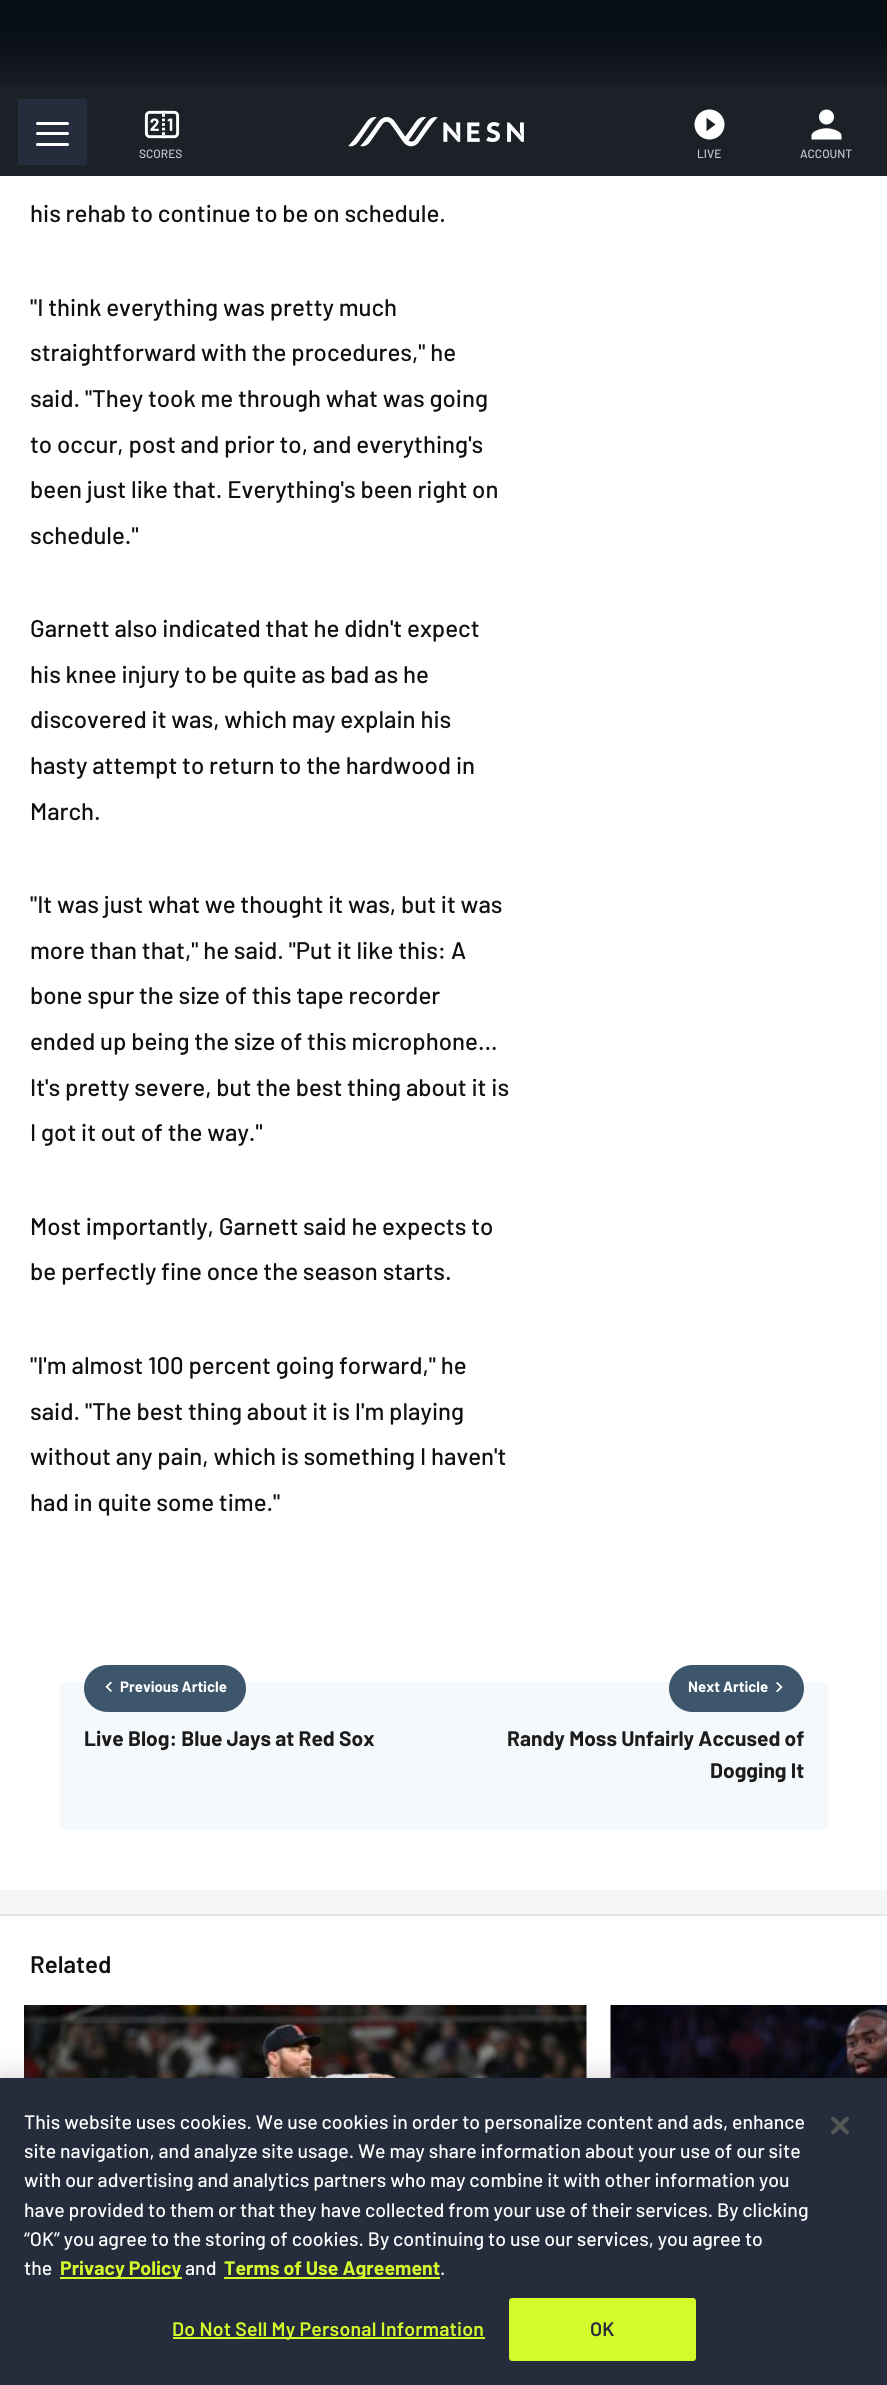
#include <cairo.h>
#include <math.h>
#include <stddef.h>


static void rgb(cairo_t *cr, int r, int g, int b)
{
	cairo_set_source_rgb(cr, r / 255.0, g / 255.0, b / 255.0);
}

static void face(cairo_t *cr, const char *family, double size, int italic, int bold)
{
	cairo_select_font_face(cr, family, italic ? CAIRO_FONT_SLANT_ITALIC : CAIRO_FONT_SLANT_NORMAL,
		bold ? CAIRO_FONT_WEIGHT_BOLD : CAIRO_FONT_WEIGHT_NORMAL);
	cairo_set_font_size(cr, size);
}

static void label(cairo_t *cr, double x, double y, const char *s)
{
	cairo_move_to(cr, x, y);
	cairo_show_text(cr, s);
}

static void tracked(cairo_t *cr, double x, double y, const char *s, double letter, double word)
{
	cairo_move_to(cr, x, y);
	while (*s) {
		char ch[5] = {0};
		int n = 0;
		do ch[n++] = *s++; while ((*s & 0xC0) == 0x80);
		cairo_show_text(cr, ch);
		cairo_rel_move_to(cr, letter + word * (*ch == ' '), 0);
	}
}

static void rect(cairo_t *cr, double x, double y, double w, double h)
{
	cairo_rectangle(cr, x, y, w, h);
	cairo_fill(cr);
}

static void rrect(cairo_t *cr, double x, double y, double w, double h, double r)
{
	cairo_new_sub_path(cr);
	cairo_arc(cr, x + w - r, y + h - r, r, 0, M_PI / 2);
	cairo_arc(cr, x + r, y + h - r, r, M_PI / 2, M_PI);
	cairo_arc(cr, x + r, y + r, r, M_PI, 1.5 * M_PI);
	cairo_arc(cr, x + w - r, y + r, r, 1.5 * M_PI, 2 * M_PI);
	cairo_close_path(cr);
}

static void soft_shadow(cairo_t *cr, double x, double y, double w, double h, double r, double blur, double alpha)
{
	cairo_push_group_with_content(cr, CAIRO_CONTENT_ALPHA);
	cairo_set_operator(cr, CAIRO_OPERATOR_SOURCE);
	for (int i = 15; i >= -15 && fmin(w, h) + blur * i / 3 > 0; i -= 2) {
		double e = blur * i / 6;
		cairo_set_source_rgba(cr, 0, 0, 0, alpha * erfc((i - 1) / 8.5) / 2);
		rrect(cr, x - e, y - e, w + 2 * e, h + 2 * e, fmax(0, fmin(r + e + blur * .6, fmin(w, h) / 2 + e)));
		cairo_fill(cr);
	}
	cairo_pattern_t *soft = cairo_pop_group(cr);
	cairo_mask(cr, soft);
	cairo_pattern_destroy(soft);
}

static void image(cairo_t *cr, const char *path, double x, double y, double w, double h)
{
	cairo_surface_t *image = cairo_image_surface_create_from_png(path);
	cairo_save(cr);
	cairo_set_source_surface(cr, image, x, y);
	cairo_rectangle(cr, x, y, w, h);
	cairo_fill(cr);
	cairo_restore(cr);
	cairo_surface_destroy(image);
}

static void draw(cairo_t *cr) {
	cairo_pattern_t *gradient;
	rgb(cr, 244, 245, 245);
	cairo_paint(cr);
	gradient = cairo_pattern_create_linear(444, 0, 444, 87);
	cairo_pattern_add_color_stop_rgba(gradient, 0.3, 0.024, 0.051, 0.078, 1);
	cairo_pattern_add_color_stop_rgba(gradient, 1, 0.094, 0.114, 0.137, 1);
	cairo_set_source(cr, gradient);
	cairo_pattern_destroy(gradient);
	rect(cr, 0, 0, 887, 87);
	rgb(cr, 28, 32, 39);
	rect(cr, 0, 87, 887, 89);
	image(cr, "image0.png", 348, 117, 176, 30);
	rgb(cr, 37, 45, 61);
	rect(cr, 18, 99, 69, 66);
	rgb(cr, 255, 255, 255);
	rrect(cr, 36, 122, 33, 3, 1.5);
	cairo_fill(cr);
	rrect(cr, 36, 132, 33, 3, 1.5);
	cairo_fill(cr);
	rrect(cr, 36, 143, 33, 3, 1.5);
	cairo_fill(cr);
	image(cr, "image1.png", 144, 110, 36, 29);
	face(cr, "Barlow Medium", 12, 0, 0);
	rgb(cr, 193, 203, 212);
	label(cr, 139, 158, "SCORES");
	image(cr, "image2.png", 694, 109, 31, 31);
	label(cr, 697, 158, "LIVE");
	image(cr, "image3.png", 811, 109, 31, 31);
	label(cr, 800, 158, "ACCOUNT");
	rgb(cr, 255, 255, 255);
	rect(cr, 0, 176, 887, 1714);
	face(cr, "Barlow Medium", 24, 0, 0);
	rgb(cr, 14, 16, 18);
	label(cr, 30, 222, "his rehab to continue to be on schedule.");
	label(cr, 30, 316, "\"I think everything was pretty much");
	label(cr, 30, 361, "straightforward with the procedures,\" he");
	label(cr, 30, 407, "said. \"They took me through what was going");
	label(cr, 30, 453, "to occur, post and prior to, and everything's");
	label(cr, 30, 498, "been just like that. Everything's been right on");
	label(cr, 30, 544, "schedule.\"");
	label(cr, 30, 637, "Garnett also indicated that he didn't expect");
	label(cr, 30, 683, "his knee injury to be quite as bad as he");
	label(cr, 30, 728, "discovered it was, which may explain his");
	label(cr, 30, 774, "hasty attempt to return to the hardwood in");
	label(cr, 30, 820, "March.");
	label(cr, 30, 913, "\"It was just what we thought it was, but it was");
	label(cr, 30, 959, "more than that,\" he said. \"Put it like this: A");
	label(cr, 30, 1004, "bone spur the size of this tape recorder");
	label(cr, 30, 1050, "ended up being the size of this microphone…");
	label(cr, 30, 1096, "It's pretty severe, but the best thing about it is");
	label(cr, 30, 1141, "I got it out of the way.\"");
	label(cr, 30, 1235, "Most importantly, Garnett said he expects to");
	label(cr, 30, 1280, "be perfectly fine once the season starts.");
	label(cr, 30, 1374, "\"I'm almost 100 percent going forward,\" he");
	label(cr, 30, 1420, "said. \"The best thing about it is I'm playing");
	label(cr, 30, 1465, "without any pain, which is something I haven't");
	label(cr, 30, 1511, "had in quite some time.\"");
	rgb(cr, 245, 249, 251);
	rect(cr, 60, 1682, 768, 148);
	rgb(cr, 62, 86, 107);
	rrect(cr, 85, 1666, 160, 45, 22.5);
	cairo_fill_preserve(cr);
	cairo_stroke(cr);
	image(cr, "image4.png", 105, 1682, 7, 10);
	face(cr, "Barlow", 15, 0, 1);
	rgb(cr, 255, 255, 255);
	label(cr, 120, 1692, "Previous Article");
	face(cr, "Barlow", 21, 0, 1);
	rgb(cr, 28, 28, 28);
	label(cr, 84, 1746, "Live Blog: Blue Jays at Red Sox");
	rgb(cr, 62, 86, 107);
	rrect(cr, 670, 1666, 133, 45, 22.5);
	cairo_fill_preserve(cr);
	cairo_stroke(cr);
	face(cr, "Barlow", 15, 0, 1);
	rgb(cr, 255, 255, 255);
	label(cr, 688, 1692, "Next Article");
	image(cr, "image5.png", 776, 1682, 7, 10);
	face(cr, "Barlow", 21, 0, 1);
	rgb(cr, 28, 28, 28);
	label(cr, 507, 1746, "Randy Moss Unfairly Accused of");
	label(cr, 710, 1778, "Dogging It");
	rgb(cr, 255, 255, 255);
	rect(cr, 0, 1916, 887, 162);
	rgb(cr, 230, 230, 230);
	rect(cr, 0, 1914, 887, 2);
	face(cr, "Barlow SemiBold", 24, 0, 0);
	rgb(cr, 14, 16, 18);
	label(cr, 30, 1973, "Related");
	image(cr, "image6.png", 24, 2005, 563, 73);
	image(cr, "image7.png", 610, 2005, 277, 73);
	rgb(cr, 0, 0, 0);
	soft_shadow(cr, 0, 2078, 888, 307, 0, 13.5, 0.2);
	rgb(cr, 37, 45, 61);
	rect(cr, 0, 2078, 887, 307);
	face(cr, "Barlow Medium", 19.5, 0, 0);
	rgb(cr, 255, 255, 255);
	label(cr, 24, 2129, "This website uses cookies. We use cookies in order to personalize content and ads, enhance");
	label(cr, 24, 2158, "site navigation, and analyze site usage. We may share information about your use of our site");
	label(cr, 24, 2187, "with our advertising and analytics partners who may combine it with other information you");
	label(cr, 24, 2217, "have provided to them or that they have collected from your use of their services. By clicking");
	label(cr, 24, 2246, "“OK” you agree to the storing of cookies. By continuing to use our services, you agree to");
	label(cr, 24, 2275, "the");
	rgb(cr, 213, 250, 44);
	rect(cr, 60, 2277, 122, 2);
	face(cr, "Barlow", 19.5, 0, 1);
	label(cr, 60, 2275, "Privacy Policy");
	face(cr, "Barlow Medium", 19.5, 0, 0);
	rgb(cr, 255, 255, 255);
	label(cr, 185, 2275, "and");
	rgb(cr, 213, 250, 44);
	rect(cr, 224, 2277, 216, 2);
	face(cr, "Barlow", 19.5, 0, 1);
	label(cr, 224, 2275, "Terms of Use Agreement");
	face(cr, "Barlow Medium", 19.5, 0, 0);
	rgb(cr, 255, 255, 255);
	label(cr, 440, 2275, ".");
	rgb(cr, 213, 250, 44);
	rect(cr, 173, 2337, 312, 2);
	face(cr, "Barlow SemiBold", 19.5, 0, 0);
	tracked(cr, 172, 2336, "Do Not Sell My Personal Information", 0.2, 0);
	rrect(cr, 510, 2299, 185, 61, 2);
	cairo_fill_preserve(cr);
	cairo_stroke(cr);
	rgb(cr, 37, 45, 61);
	tracked(cr, 590, 2336, "OK", 0.2, 0);
	image(cr, "image8.png", 831, 2117, 18, 18);
}

int main(void) {
	cairo_surface_t *surface = cairo_image_surface_create(CAIRO_FORMAT_RGB24, 887, 2385);
	cairo_t *cr = cairo_create(surface);
	cairo_font_options_t *options = cairo_font_options_create();
	cairo_font_options_set_hint_metrics(options, CAIRO_HINT_METRICS_OFF);
	cairo_font_options_set_hint_style(options, CAIRO_HINT_STYLE_NONE);
	cairo_set_font_options(cr, options);
	cairo_set_miter_limit(cr, 4);
	draw(cr);
	cairo_surface_write_to_png(surface, "render.png");
	cairo_font_options_destroy(options);
	cairo_destroy(cr);
	cairo_surface_destroy(surface);
	return 0;
}
